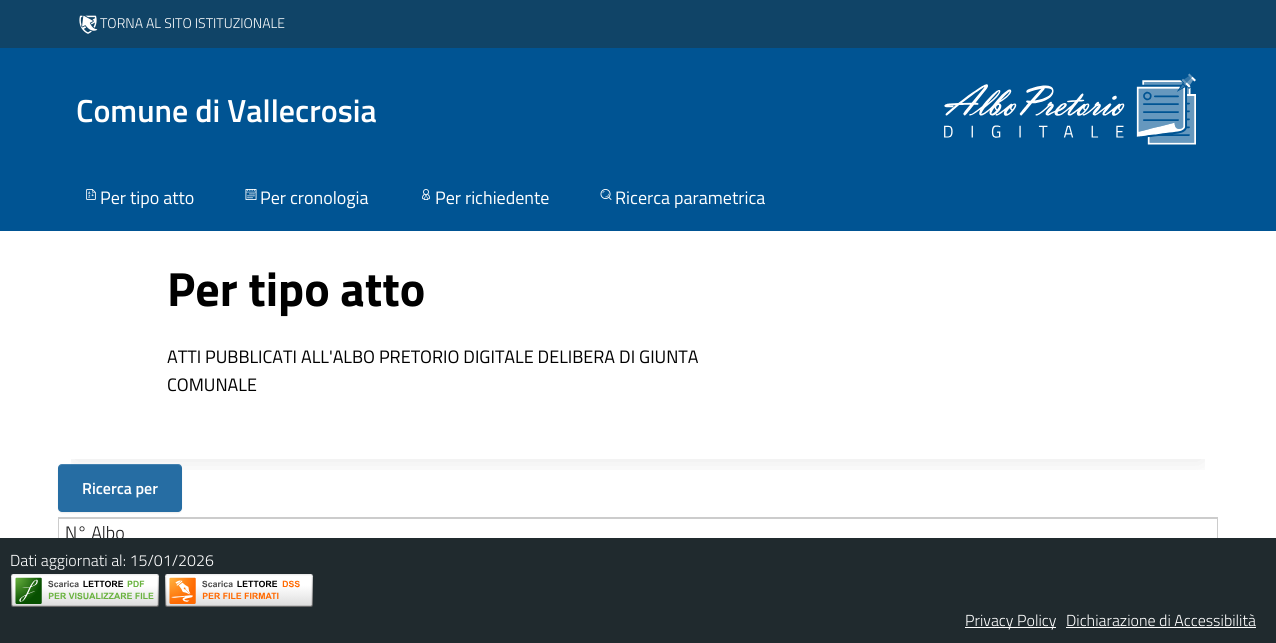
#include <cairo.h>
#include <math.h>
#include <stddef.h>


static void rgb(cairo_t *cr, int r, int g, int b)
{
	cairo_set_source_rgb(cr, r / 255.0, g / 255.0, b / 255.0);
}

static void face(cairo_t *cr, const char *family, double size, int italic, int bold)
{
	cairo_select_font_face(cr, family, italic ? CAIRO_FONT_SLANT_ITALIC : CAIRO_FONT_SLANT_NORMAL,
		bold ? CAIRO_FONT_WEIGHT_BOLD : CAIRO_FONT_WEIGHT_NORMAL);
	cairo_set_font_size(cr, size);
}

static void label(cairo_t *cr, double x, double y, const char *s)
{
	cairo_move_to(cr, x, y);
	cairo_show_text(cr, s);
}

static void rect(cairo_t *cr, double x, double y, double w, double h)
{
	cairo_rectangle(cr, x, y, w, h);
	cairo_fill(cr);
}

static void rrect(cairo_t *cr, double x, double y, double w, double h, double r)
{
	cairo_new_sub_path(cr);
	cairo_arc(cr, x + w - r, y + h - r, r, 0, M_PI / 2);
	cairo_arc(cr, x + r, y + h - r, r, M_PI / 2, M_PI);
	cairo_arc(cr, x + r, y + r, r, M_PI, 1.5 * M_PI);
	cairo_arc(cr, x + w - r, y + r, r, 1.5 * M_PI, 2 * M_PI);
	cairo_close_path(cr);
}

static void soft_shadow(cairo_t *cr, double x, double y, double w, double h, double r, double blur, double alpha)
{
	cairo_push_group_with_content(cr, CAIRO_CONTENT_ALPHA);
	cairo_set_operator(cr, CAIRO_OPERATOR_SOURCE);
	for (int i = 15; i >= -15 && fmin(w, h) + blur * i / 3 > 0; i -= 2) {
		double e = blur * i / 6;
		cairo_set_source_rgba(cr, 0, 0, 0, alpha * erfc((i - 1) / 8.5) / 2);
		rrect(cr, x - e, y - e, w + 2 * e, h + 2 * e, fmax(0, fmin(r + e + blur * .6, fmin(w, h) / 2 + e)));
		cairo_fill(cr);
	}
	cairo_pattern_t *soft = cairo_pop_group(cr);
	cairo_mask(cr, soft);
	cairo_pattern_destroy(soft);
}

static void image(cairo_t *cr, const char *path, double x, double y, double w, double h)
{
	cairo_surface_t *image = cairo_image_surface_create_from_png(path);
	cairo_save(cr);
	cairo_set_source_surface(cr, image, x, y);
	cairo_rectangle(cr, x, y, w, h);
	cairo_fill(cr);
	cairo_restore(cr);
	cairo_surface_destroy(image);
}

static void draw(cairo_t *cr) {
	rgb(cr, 255, 255, 255);
	cairo_paint(cr);
	rgb(cr, 16, 68, 103);
	rect(cr, 0, 0, 1276, 48);
	image(cr, "image0.png", 79, 15, 19, 19);
	face(cr, "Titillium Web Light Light", 14, 0, 0);
	rgb(cr, 255, 255, 255);
	label(cr, 100, 28, "TORNA AL SITO ISTITUZIONALE");
	rgb(cr, 0, 84, 147);
	rect(cr, 0, 48, 1276, 183);
	face(cr, "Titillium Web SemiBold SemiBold", 32, 0, 0);
	rgb(cr, 255, 255, 255);
	label(cr, 76, 122, "Comune di Vallecrosia");
	image(cr, "image1.png", 944, 73, 252, 72);
	image(cr, "image2.png", 86, 189, 10, 11);
	face(cr, "Titillium Web", 18, 0, 0);
	label(cr, 100, 204, "Per tipo atto");
	image(cr, "image3.png", 245, 189, 12, 11);
	label(cr, 260, 204, "Per cronologia");
	image(cr, "image4.png", 422, 189, 8, 11);
	label(cr, 435, 204, "Per richiedente");
	image(cr, "image5.png", 600, 189, 12, 11);
	label(cr, 615, 204, "Ricerca parametrica");
	cairo_save(cr);
	cairo_rectangle(cr, 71, 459, 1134, 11);
	cairo_clip(cr);
	rgb(cr, 0, 0, 0);
	soft_shadow(cr, 74, 292, 1128, 168, 0, 12, 0.1);
	cairo_restore(cr);
	face(cr, "Titillium Web", 48, 0, 1);
	rgb(cr, 0, 0, 0);
	label(cr, 167, 306, "Per tipo atto");
	face(cr, "Titillium Web", 18, 0, 0);
	label(cr, 167, 363, "ATTI PUBBLICATI ALL'ALBO PRETORIO DIGITALE DELIBERA DI GIUNTA");
	label(cr, 167, 391, "COMUNALE");
	cairo_save(cr);
	cairo_set_fill_rule(cr, CAIRO_FILL_RULE_EVEN_ODD);
	cairo_new_path(cr);
	cairo_move_to(cr, 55, 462);
	cairo_line_to(cr, 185, 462);
	cairo_line_to(cr, 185, 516);
	cairo_line_to(cr, 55, 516);
	cairo_close_path(cr);
	cairo_move_to(cr, 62, 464);
	cairo_line_to(cr, 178, 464);
	cairo_curve_to(cr, 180, 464, 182, 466, 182, 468);
	cairo_line_to(cr, 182, 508);
	cairo_curve_to(cr, 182, 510, 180, 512, 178, 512);
	cairo_line_to(cr, 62, 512);
	cairo_curve_to(cr, 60, 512, 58, 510, 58, 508);
	cairo_line_to(cr, 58, 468);
	cairo_curve_to(cr, 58, 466, 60, 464, 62, 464);
	cairo_close_path(cr);
	cairo_clip(cr);
	rgb(cr, 0, 0, 0);
	soft_shadow(cr, 58, 465, 124, 48, 4, 0.5, 0.07);
	cairo_restore(cr);
	cairo_set_source_rgba(cr, 0, 0.329, 0.576, 0.85);
	rrect(cr, 58, 464, 124, 48, 4);
	cairo_fill(cr);
	cairo_set_source_rgba(cr, 1, 1, 1, 0.15);
	cairo_new_path(cr);
	cairo_move_to(cr, 62, 465);
	cairo_line_to(cr, 178, 465);
	cairo_curve_to(cr, 180, 465, 182, 467, 182, 469);
	cairo_curve_to(cr, 182, 459, 161, 464, 159, 464);
	cairo_line_to(cr, 81, 464);
	cairo_curve_to(cr, 79, 464, 58, 459, 58, 469);
	cairo_curve_to(cr, 58, 467, 60, 465, 62, 465);
	cairo_close_path(cr);
	cairo_fill(cr);
	face(cr, "Titillium Web SemiBold SemiBold", 16, 0, 0);
	rgb(cr, 255, 255, 255);
	label(cr, 82, 494, "Ricerca per");
	rgb(cr, 204, 204, 204);
	rect(cr, 58, 517, 1160, 2);
	rect(cr, 1217, 518, 1, 20);
	rect(cr, 58, 518, 1, 20);
	face(cr, "Titillium Web Light Light", 18, 0, 0);
	rgb(cr, 25, 25, 26);
	label(cr, 65, 539, "N° Albo");
	rgb(cr, 32, 42, 46);
	rect(cr, 0, 538, 1276, 105);
	face(cr, "Titillium Web Light Light", 16, 0, 0);
	rgb(cr, 255, 255, 255);
	label(cr, 10, 566, "Dati aggiornati al: 15/01/2026");
	image(cr, "image6.png", 10, 574, 150, 33);
	image(cr, "image7.png", 164, 574, 150, 33);
	rect(cr, 965, 627, 91, 1);
	label(cr, 965, 626, "Privacy Policy");
	label(cr, 1066, 626, "Dichiarazione di Accessibilità");
	rect(cr, 1066, 627, 190, 1);
}

int main(void) {
	cairo_surface_t *surface = cairo_image_surface_create(CAIRO_FORMAT_RGB24, 1276, 643);
	cairo_t *cr = cairo_create(surface);
	cairo_font_options_t *options = cairo_font_options_create();
	cairo_font_options_set_hint_metrics(options, CAIRO_HINT_METRICS_OFF);
	cairo_font_options_set_hint_style(options, CAIRO_HINT_STYLE_NONE);
	cairo_set_font_options(cr, options);
	cairo_set_miter_limit(cr, 4);
	draw(cr);
	cairo_surface_write_to_png(surface, "render.png");
	cairo_font_options_destroy(options);
	cairo_destroy(cr);
	cairo_surface_destroy(surface);
	return 0;
}
